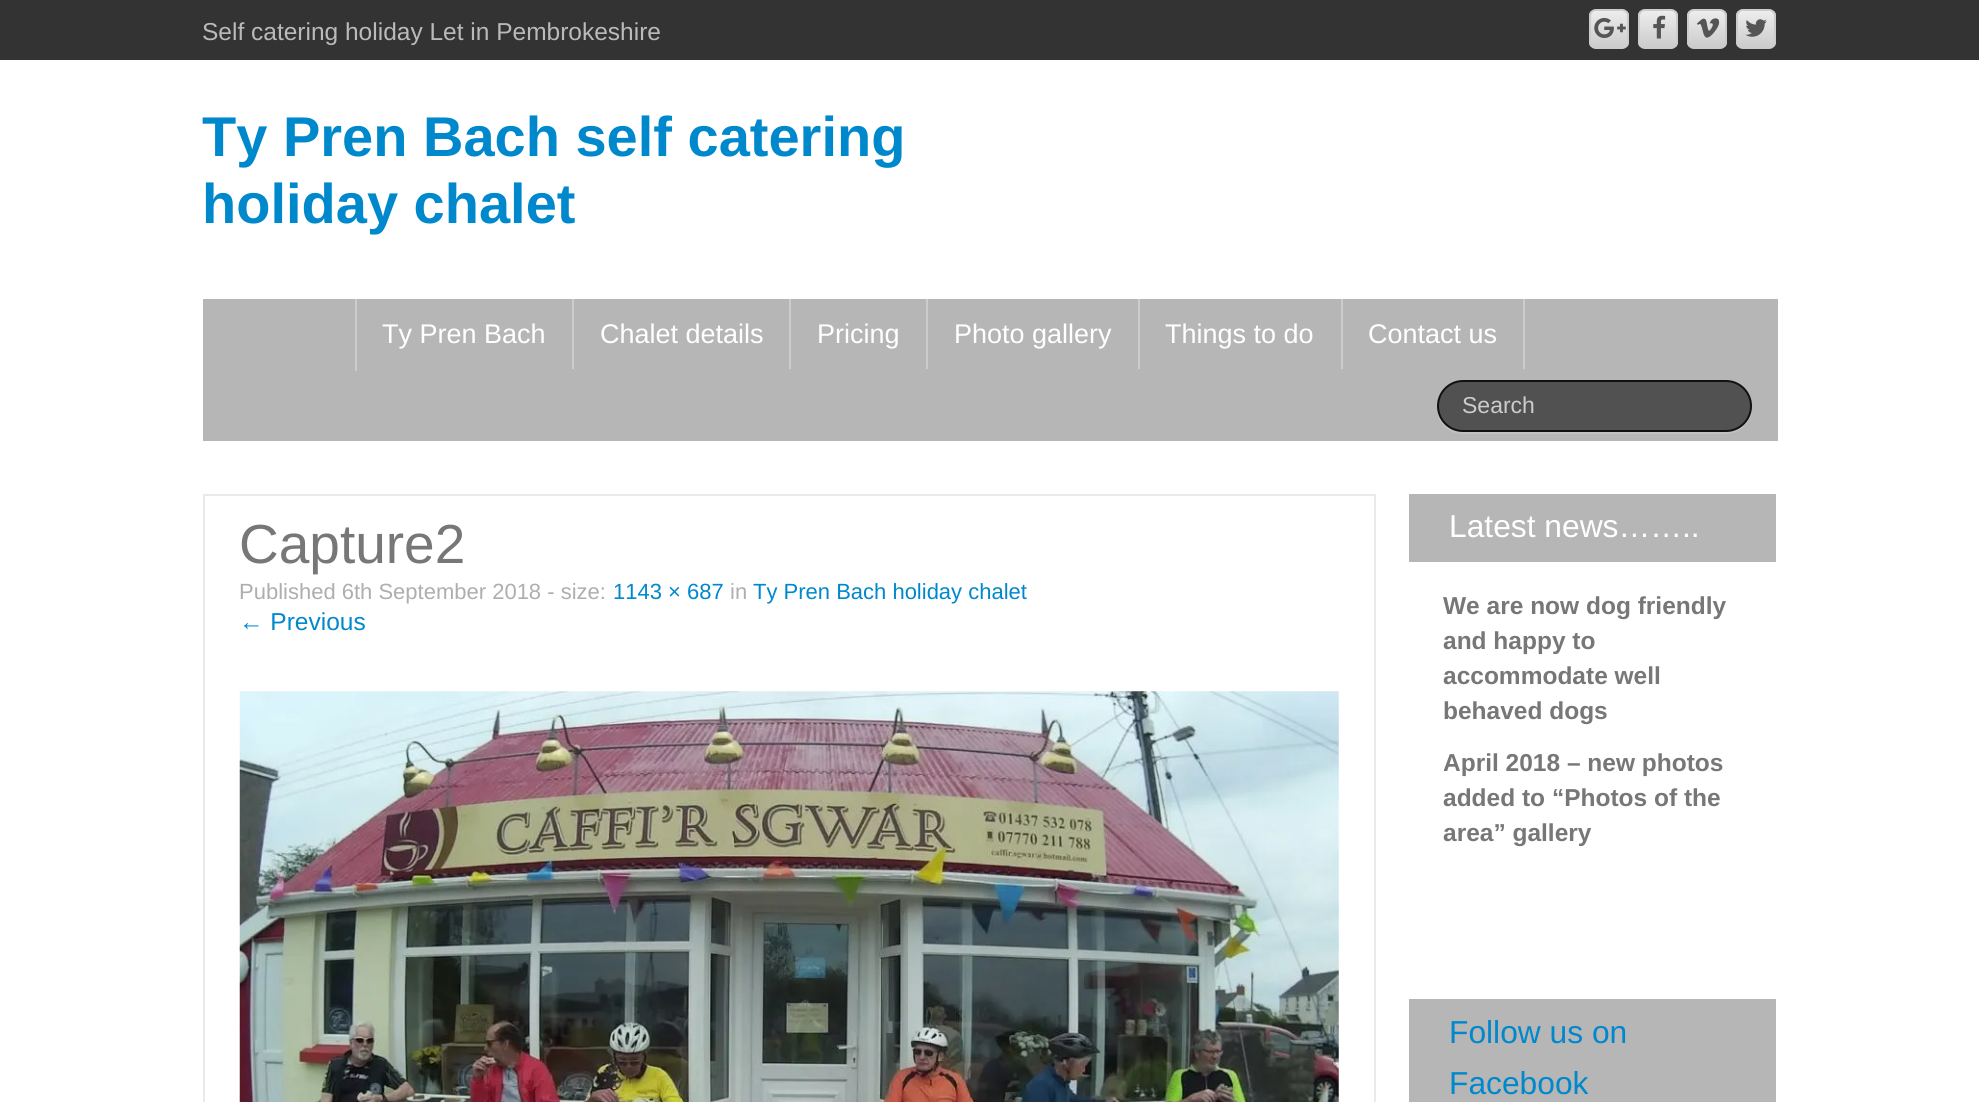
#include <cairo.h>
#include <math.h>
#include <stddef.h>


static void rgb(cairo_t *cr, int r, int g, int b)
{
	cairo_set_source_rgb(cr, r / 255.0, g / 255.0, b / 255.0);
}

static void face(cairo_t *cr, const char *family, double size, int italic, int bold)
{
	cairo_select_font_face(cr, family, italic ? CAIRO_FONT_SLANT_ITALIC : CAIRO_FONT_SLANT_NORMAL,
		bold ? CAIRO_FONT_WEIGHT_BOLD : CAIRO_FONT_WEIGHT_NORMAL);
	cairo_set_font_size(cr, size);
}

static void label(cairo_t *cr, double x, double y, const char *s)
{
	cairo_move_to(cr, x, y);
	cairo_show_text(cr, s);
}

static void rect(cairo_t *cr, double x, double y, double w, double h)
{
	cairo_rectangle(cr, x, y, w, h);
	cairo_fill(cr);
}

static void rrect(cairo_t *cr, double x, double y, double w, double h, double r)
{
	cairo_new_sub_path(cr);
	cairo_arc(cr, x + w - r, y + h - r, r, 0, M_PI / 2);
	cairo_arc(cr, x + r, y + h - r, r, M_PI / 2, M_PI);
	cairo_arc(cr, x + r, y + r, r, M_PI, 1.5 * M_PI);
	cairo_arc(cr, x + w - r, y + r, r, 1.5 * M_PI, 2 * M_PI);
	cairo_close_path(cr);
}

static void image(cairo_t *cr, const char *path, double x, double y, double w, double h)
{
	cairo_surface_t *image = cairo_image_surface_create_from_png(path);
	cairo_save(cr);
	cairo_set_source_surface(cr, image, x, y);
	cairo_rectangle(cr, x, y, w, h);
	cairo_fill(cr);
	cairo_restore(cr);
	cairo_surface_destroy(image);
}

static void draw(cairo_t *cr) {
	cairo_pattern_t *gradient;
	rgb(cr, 255, 255, 255);
	cairo_paint(cr);
	rgb(cr, 51, 51, 51);
	rect(cr, 0, 0, 1979, 60);
	face(cr, "Liberation Sans", 24.5, 0, 0);
	rgb(cr, 186, 186, 186);
	label(cr, 202, 40, "Self catering holiday Let in Pembrokeshire");
	cairo_save(cr);
	rrect(cr, 1589, 9, 40, 40, 7);
	cairo_clip(cr);
	gradient = cairo_pattern_create_linear(1609, 10, 1609, 47);
	cairo_pattern_add_color_stop_rgba(gradient, 0, 0.933, 0.933, 0.933, 1);
	cairo_pattern_add_color_stop_rgba(gradient, 1, 0.8, 0.8, 0.8, 1);
	cairo_set_source(cr, gradient);
	cairo_pattern_destroy(gradient);
	rect(cr, 1589, 11, 40, 36);
	cairo_restore(cr);
	rrect(cr, 1590, 10, 38, 38, 6);
	rgb(cr, 204, 204, 204);
	cairo_stroke(cr);
	image(cr, "image0.png", 1594, 18, 32, 20);
	cairo_save(cr);
	rrect(cr, 1638, 9, 40, 40, 7);
	cairo_clip(cr);
	gradient = cairo_pattern_create_linear(1658, 10, 1658, 47);
	cairo_pattern_add_color_stop_rgba(gradient, 0, 0.933, 0.933, 0.933, 1);
	cairo_pattern_add_color_stop_rgba(gradient, 1, 0.8, 0.8, 0.8, 1);
	cairo_set_source(cr, gradient);
	cairo_pattern_destroy(gradient);
	rect(cr, 1638, 11, 40, 36);
	cairo_restore(cr);
	rrect(cr, 1639, 10, 38, 38, 6);
	cairo_stroke(cr);
	image(cr, "image1.png", 1653, 15, 13, 24);
	cairo_save(cr);
	rrect(cr, 1687, 9, 40, 40, 7);
	cairo_clip(cr);
	gradient = cairo_pattern_create_linear(1707, 10, 1707, 47);
	cairo_pattern_add_color_stop_rgba(gradient, 0, 0.933, 0.933, 0.933, 1);
	cairo_pattern_add_color_stop_rgba(gradient, 1, 0.8, 0.8, 0.8, 1);
	cairo_set_source(cr, gradient);
	cairo_pattern_destroy(gradient);
	rect(cr, 1687, 11, 40, 36);
	cairo_restore(cr);
	rrect(cr, 1688, 10, 38, 38, 6);
	cairo_stroke(cr);
	image(cr, "image2.png", 1697, 18, 23, 20);
	cairo_save(cr);
	rrect(cr, 1736, 9, 40, 40, 7);
	cairo_clip(cr);
	gradient = cairo_pattern_create_linear(1756, 10, 1756, 47);
	cairo_pattern_add_color_stop_rgba(gradient, 0, 0.933, 0.933, 0.933, 1);
	cairo_pattern_add_color_stop_rgba(gradient, 1, 0.8, 0.8, 0.8, 1);
	cairo_set_source(cr, gradient);
	cairo_pattern_destroy(gradient);
	rect(cr, 1736, 11, 40, 36);
	cairo_restore(cr);
	rrect(cr, 1737, 10, 38, 38, 6);
	cairo_stroke(cr);
	image(cr, "image3.png", 1745, 19, 22, 18);
	face(cr, "Liberation Sans", 56, 0, 1);
	rgb(cr, 0, 136, 204);
	label(cr, 202, 156, "Ty Pren Bach self catering");
	label(cr, 202, 223, "holiday chalet");
	rgb(cr, 182, 182, 182);
	rect(cr, 203, 299, 1575, 142);
	rgb(cr, 204, 204, 204);
	rect(cr, 355, 299, 2, 72);
	rect(cr, 572, 299, 2, 70);
	face(cr, "Liberation Sans", 27, 0, 0);
	rgb(cr, 255, 255, 255);
	label(cr, 382, 343, "Ty Pren Bach");
	rgb(cr, 204, 204, 204);
	rect(cr, 789, 299, 2, 70);
	rgb(cr, 255, 255, 255);
	label(cr, 600, 343, "Chalet details");
	rgb(cr, 204, 204, 204);
	rect(cr, 926, 299, 2, 70);
	rgb(cr, 255, 255, 255);
	label(cr, 817, 343, "Pricing");
	rgb(cr, 204, 204, 204);
	rect(cr, 1138, 299, 2, 70);
	rgb(cr, 255, 255, 255);
	label(cr, 954, 343, "Photo gallery");
	rgb(cr, 204, 204, 204);
	rect(cr, 1341, 299, 2, 70);
	rgb(cr, 255, 255, 255);
	label(cr, 1165, 343, "Things to do");
	rgb(cr, 204, 204, 204);
	rect(cr, 1523, 299, 2, 70);
	rgb(cr, 255, 255, 255);
	label(cr, 1368, 343, "Contact us");
	rgb(cr, 193, 193, 193);
	cairo_new_path(cr);
	cairo_move_to(cr, 1437, 410);
	cairo_curve_to(cr, 1438, 424, 1449, 434, 1463, 434);
	cairo_line_to(cr, 1726, 434);
	cairo_curve_to(cr, 1740, 434, 1752, 422, 1752, 408);
	cairo_line_to(cr, 1752, 404);
	cairo_line_to(cr, 1752, 406);
	cairo_curve_to(cr, 1752, 420, 1740, 432, 1726, 432);
	cairo_line_to(cr, 1463, 432);
	cairo_curve_to(cr, 1450, 432, 1439, 423, 1437, 410);
	cairo_close_path(cr);
	cairo_fill(cr);
	rgb(cr, 81, 81, 81);
	rrect(cr, 1438, 381, 313, 50, 25);
	cairo_fill_preserve(cr);
	rgb(cr, 17, 17, 17);
	cairo_stroke(cr);
	face(cr, "Liberation Sans", 23, 0, 0);
	rgb(cr, 204, 204, 204);
	label(cr, 1462, 413, "Search");
	cairo_rectangle(cr, 204, 495, 1171, 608);
	rgb(cr, 234, 234, 234);
	cairo_stroke(cr);
	face(cr, "Liberation Sans", 55, 0, 0);
	rgb(cr, 119, 119, 119);
	label(cr, 239, 563, "Capture2");
	face(cr, "Liberation Sans", 22, 0, 0);
	rgb(cr, 175, 174, 174);
	label(cr, 239, 599, "Published 6th September 2018 - size:");
	rgb(cr, 0, 136, 204);
	label(cr, 613, 599, "1143 × 687");
	rgb(cr, 175, 174, 174);
	label(cr, 730, 599, "in");
	rgb(cr, 0, 136, 204);
	label(cr, 753, 599, "Ty Pren Bach holiday chalet");
	face(cr, "Liberation Sans", 24.5, 0, 0);
	label(cr, 239, 630, "← Previous");
	image(cr, "image4.png", 239, 691, 1100, 411);
	rgb(cr, 182, 182, 182);
	rect(cr, 1409, 494, 367, 68);
	face(cr, "Liberation Sans", 31.75, 0, 0);
	rgb(cr, 255, 255, 255);
	label(cr, 1449, 537, "Latest news……..");
	face(cr, "Liberation Sans", 24.5, 0, 1);
	rgb(cr, 119, 119, 119);
	label(cr, 1443, 614, "We are now dog friendly");
	label(cr, 1443, 649, "and happy to");
	label(cr, 1443, 684, "accommodate well");
	label(cr, 1443, 719, "behaved dogs");
	label(cr, 1443, 771, "April 2018 – new photos");
	label(cr, 1443, 806, "added to “Photos of the");
	label(cr, 1443, 841, "area” gallery");
	rgb(cr, 182, 182, 182);
	rect(cr, 1409, 999, 367, 103);
	face(cr, "Liberation Sans", 31.75, 0, 0);
	rgb(cr, 0, 136, 204);
	label(cr, 1449, 1043, "Follow us on");
	label(cr, 1449, 1094, "Facebook");
}

int main(void) {
	cairo_surface_t *surface = cairo_image_surface_create(CAIRO_FORMAT_RGB24, 1979, 1102);
	cairo_t *cr = cairo_create(surface);
	cairo_font_options_t *options = cairo_font_options_create();
	cairo_font_options_set_hint_metrics(options, CAIRO_HINT_METRICS_OFF);
	cairo_font_options_set_hint_style(options, CAIRO_HINT_STYLE_NONE);
	cairo_set_font_options(cr, options);
	cairo_set_miter_limit(cr, 4);
	draw(cr);
	cairo_surface_write_to_png(surface, "render.png");
	cairo_font_options_destroy(options);
	cairo_destroy(cr);
	cairo_surface_destroy(surface);
	return 0;
}
